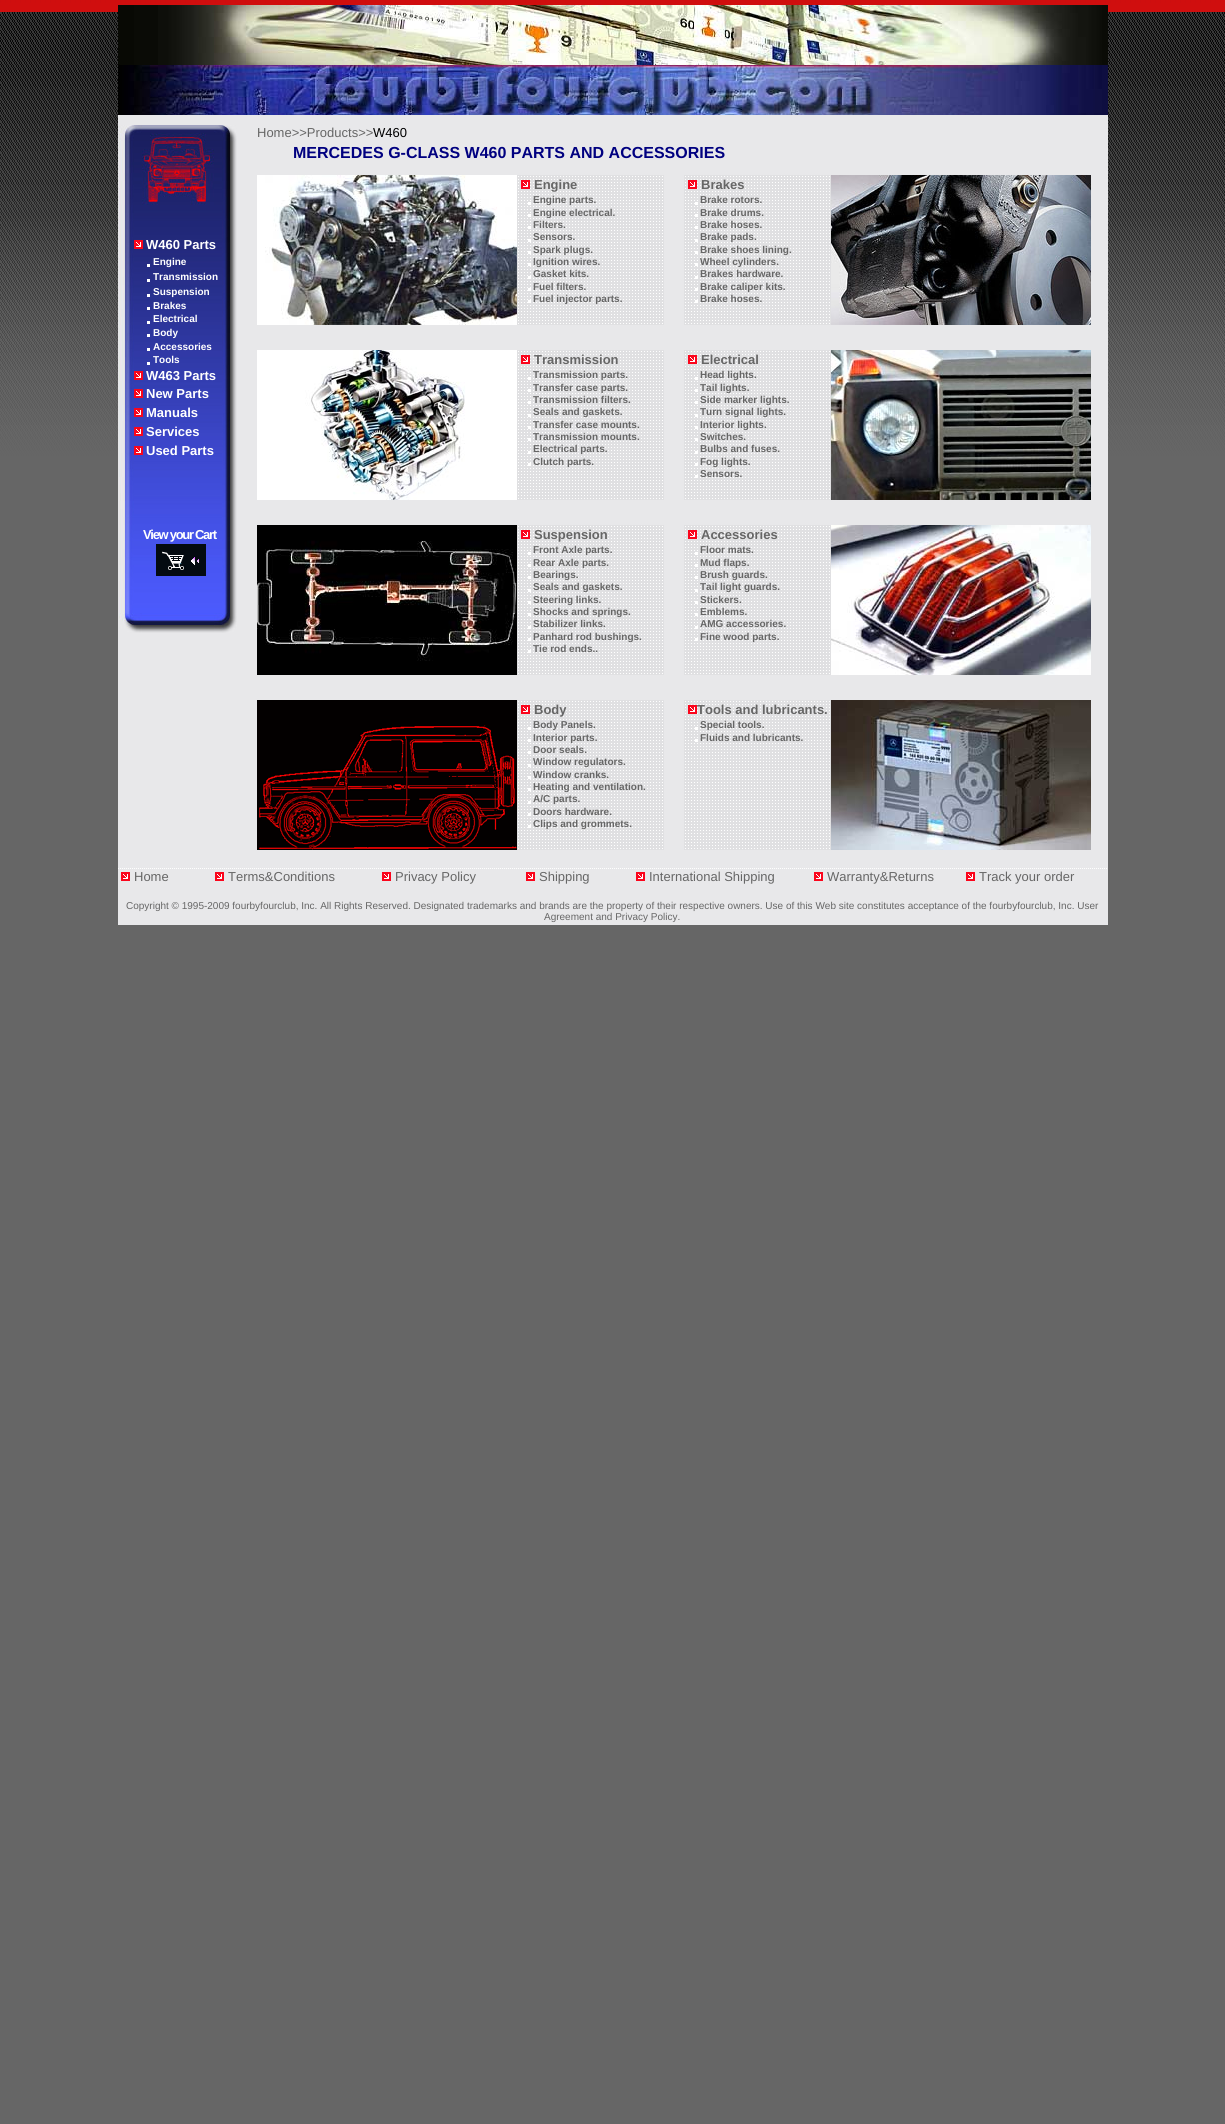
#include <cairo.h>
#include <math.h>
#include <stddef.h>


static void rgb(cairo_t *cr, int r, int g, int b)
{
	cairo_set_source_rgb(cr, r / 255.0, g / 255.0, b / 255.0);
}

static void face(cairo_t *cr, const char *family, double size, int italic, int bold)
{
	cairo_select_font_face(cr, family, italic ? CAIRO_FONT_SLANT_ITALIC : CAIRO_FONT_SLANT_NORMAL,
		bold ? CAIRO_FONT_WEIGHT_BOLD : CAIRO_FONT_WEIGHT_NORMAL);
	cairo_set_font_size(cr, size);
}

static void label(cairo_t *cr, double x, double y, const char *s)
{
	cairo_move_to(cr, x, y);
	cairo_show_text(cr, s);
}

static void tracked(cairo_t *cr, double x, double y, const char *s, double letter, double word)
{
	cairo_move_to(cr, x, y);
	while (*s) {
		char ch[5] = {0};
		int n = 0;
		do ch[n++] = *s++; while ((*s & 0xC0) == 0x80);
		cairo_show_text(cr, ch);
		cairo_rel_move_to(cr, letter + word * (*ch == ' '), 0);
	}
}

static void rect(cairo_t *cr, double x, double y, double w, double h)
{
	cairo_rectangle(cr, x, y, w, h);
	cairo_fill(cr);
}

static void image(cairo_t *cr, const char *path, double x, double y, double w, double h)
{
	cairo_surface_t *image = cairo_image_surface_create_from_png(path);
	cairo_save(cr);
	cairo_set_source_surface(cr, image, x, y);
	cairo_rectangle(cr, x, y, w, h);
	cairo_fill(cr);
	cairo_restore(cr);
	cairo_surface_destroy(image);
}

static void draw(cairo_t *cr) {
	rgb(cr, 255, 255, 255);
	cairo_paint(cr);
	image(cr, "image0.png", 0, 0, 1225, 2124);
	rgb(cr, 232, 232, 234);
	rect(cr, 118, 115, 990, 810);
	image(cr, "image1.png", 118, 5, 990, 60);
	image(cr, "image2.png", 118, 65, 990, 50);
	image(cr, "image3.png", 119, 125, 118, 508);
	image(cr, "image4.png", 134, 240, 9, 9);
	face(cr, "Liberation Sans", 13, 0, 1);
	rgb(cr, 255, 255, 255);
	label(cr, 146, 249, "W460 Parts");
	rect(cr, 147, 264, 3, 3);
	face(cr, "Liberation Sans", 10, 0, 1);
	label(cr, 153, 265, "Engine");
	rect(cr, 147, 279, 3, 3);
	label(cr, 153, 280, "Transmission");
	rect(cr, 147, 294, 3, 3);
	label(cr, 153, 295, "Suspension");
	rect(cr, 147, 307, 3, 3);
	label(cr, 153, 309, "Brakes");
	rect(cr, 147, 321, 3, 3);
	label(cr, 153, 322, "Electrical");
	rect(cr, 147, 334, 3, 3);
	label(cr, 153, 336, "Body");
	rect(cr, 147, 348, 3, 3);
	label(cr, 153, 350, "Accessories");
	rect(cr, 147, 362, 3, 3);
	label(cr, 153, 363, "Tools");
	image(cr, "image4.png", 134, 371, 9, 9);
	face(cr, "Liberation Sans", 13, 0, 1);
	label(cr, 146, 380, "W463 Parts");
	image(cr, "image4.png", 134, 389, 9, 9);
	label(cr, 146, 398, "New Parts");
	image(cr, "image4.png", 134, 408, 9, 9);
	label(cr, 146, 417, "Manuals");
	image(cr, "image4.png", 134, 427, 9, 9);
	label(cr, 146, 436, "Services");
	image(cr, "image4.png", 134, 446, 9, 9);
	label(cr, 146, 455, "Used Parts");
	tracked(cr, 143, 539, "View your Cart", -1.3, 0);
	image(cr, "image5.png", 156, 544, 50, 32);
	face(cr, "Liberation Sans", 13, 0, 0);
	rgb(cr, 102, 102, 102);
	label(cr, 257, 137, "Home>>Products>>");
	rgb(cr, 0, 0, 0);
	label(cr, 373, 137, "W460");
	face(cr, "Liberation Sans", 16, 0, 1);
	rgb(cr, 0, 0, 128);
	label(cr, 293, 158, "MERCEDES G-CLASS W460 PARTS AND ACCESSORIES");
	image(cr, "image6.png", 257, 175, 260, 150);
	image(cr, "image7.png", 517, 175, 147, 150);
	image(cr, "image4.png", 521, 180, 9, 9);
	face(cr, "Liberation Sans", 13, 0, 1);
	rgb(cr, 102, 102, 102);
	label(cr, 534, 189, "Engine");
	rgb(cr, 255, 255, 255);
	rect(cr, 528, 202, 3, 3);
	face(cr, "Liberation Sans", 10, 0, 1);
	rgb(cr, 102, 102, 102);
	label(cr, 533, 203, "Engine parts.");
	label(cr, 533, 216, "Engine electrical.");
	rgb(cr, 255, 255, 255);
	rect(cr, 528, 214, 3, 3);
	rgb(cr, 102, 102, 102);
	label(cr, 533, 228, "Filters.");
	rgb(cr, 255, 255, 255);
	rect(cr, 528, 226, 3, 3);
	rgb(cr, 102, 102, 102);
	label(cr, 533, 240, "Sensors.");
	rgb(cr, 255, 255, 255);
	rect(cr, 528, 239, 3, 3);
	rgb(cr, 102, 102, 102);
	label(cr, 533, 253, "Spark plugs.");
	rgb(cr, 255, 255, 255);
	rect(cr, 528, 251, 3, 3);
	rgb(cr, 102, 102, 102);
	label(cr, 533, 265, "Ignition wires.");
	rgb(cr, 255, 255, 255);
	rect(cr, 528, 263, 3, 3);
	rgb(cr, 102, 102, 102);
	label(cr, 533, 277, "Gasket kits.");
	rgb(cr, 255, 255, 255);
	rect(cr, 528, 276, 3, 3);
	rgb(cr, 102, 102, 102);
	label(cr, 533, 290, "Fuel filters.");
	rgb(cr, 255, 255, 255);
	rect(cr, 528, 288, 3, 3);
	rgb(cr, 102, 102, 102);
	label(cr, 533, 302, "Fuel injector parts.");
	rgb(cr, 255, 255, 255);
	rect(cr, 528, 300, 3, 3);
	image(cr, "image7.png", 684, 175, 147, 150);
	image(cr, "image4.png", 688, 180, 9, 9);
	face(cr, "Liberation Sans", 13, 0, 1);
	rgb(cr, 102, 102, 102);
	label(cr, 701, 189, "Brakes");
	rgb(cr, 255, 255, 255);
	rect(cr, 695, 202, 3, 3);
	face(cr, "Liberation Sans", 10, 0, 1);
	rgb(cr, 102, 102, 102);
	label(cr, 700, 203, "Brake rotors.");
	label(cr, 700, 216, "Brake drums.");
	rgb(cr, 255, 255, 255);
	rect(cr, 695, 214, 3, 3);
	rgb(cr, 102, 102, 102);
	label(cr, 700, 228, "Brake hoses.");
	rgb(cr, 255, 255, 255);
	rect(cr, 695, 226, 3, 3);
	rgb(cr, 102, 102, 102);
	label(cr, 700, 240, "Brake pads.");
	rgb(cr, 255, 255, 255);
	rect(cr, 695, 239, 3, 3);
	rgb(cr, 102, 102, 102);
	label(cr, 700, 253, "Brake shoes lining.");
	rgb(cr, 255, 255, 255);
	rect(cr, 695, 251, 3, 3);
	rgb(cr, 102, 102, 102);
	label(cr, 700, 265, "Wheel cylinders.");
	rgb(cr, 255, 255, 255);
	rect(cr, 695, 263, 3, 3);
	rgb(cr, 102, 102, 102);
	label(cr, 700, 277, "Brakes hardware.");
	rgb(cr, 255, 255, 255);
	rect(cr, 695, 276, 3, 3);
	rgb(cr, 102, 102, 102);
	label(cr, 700, 290, "Brake caliper kits.");
	rgb(cr, 255, 255, 255);
	rect(cr, 695, 288, 3, 3);
	rgb(cr, 102, 102, 102);
	label(cr, 700, 302, "Brake hoses.");
	rgb(cr, 255, 255, 255);
	rect(cr, 695, 300, 3, 3);
	image(cr, "image8.png", 831, 175, 260, 150);
	image(cr, "image9.png", 257, 350, 260, 150);
	image(cr, "image7.png", 517, 350, 147, 150);
	image(cr, "image4.png", 521, 355, 9, 9);
	face(cr, "Liberation Sans", 13, 0, 1);
	rgb(cr, 102, 102, 102);
	label(cr, 534, 364, "Transmission");
	rgb(cr, 255, 255, 255);
	rect(cr, 528, 377, 3, 3);
	face(cr, "Liberation Sans", 10, 0, 1);
	rgb(cr, 102, 102, 102);
	label(cr, 533, 378, "Transmission parts.");
	label(cr, 533, 391, "Transfer case parts.");
	rgb(cr, 255, 255, 255);
	rect(cr, 528, 389, 3, 3);
	rgb(cr, 102, 102, 102);
	label(cr, 533, 403, "Transmission filters.");
	rgb(cr, 255, 255, 255);
	rect(cr, 528, 401, 3, 3);
	rgb(cr, 102, 102, 102);
	label(cr, 533, 415, "Seals and gaskets.");
	rgb(cr, 255, 255, 255);
	rect(cr, 528, 414, 3, 3);
	rgb(cr, 102, 102, 102);
	label(cr, 533, 428, "Transfer case mounts.");
	rgb(cr, 255, 255, 255);
	rect(cr, 528, 426, 3, 3);
	rgb(cr, 102, 102, 102);
	label(cr, 533, 440, "Transmission mounts.");
	rgb(cr, 255, 255, 255);
	rect(cr, 528, 438, 3, 3);
	rgb(cr, 102, 102, 102);
	label(cr, 533, 452, "Electrical parts.");
	rgb(cr, 255, 255, 255);
	rect(cr, 528, 451, 3, 3);
	rgb(cr, 102, 102, 102);
	label(cr, 533, 465, "Clutch parts.");
	rgb(cr, 255, 255, 255);
	rect(cr, 528, 463, 3, 3);
	image(cr, "image7.png", 684, 350, 147, 150);
	image(cr, "image4.png", 688, 355, 9, 9);
	face(cr, "Liberation Sans", 13, 0, 1);
	rgb(cr, 102, 102, 102);
	label(cr, 701, 364, "Electrical");
	rgb(cr, 255, 255, 255);
	rect(cr, 695, 377, 3, 3);
	face(cr, "Liberation Sans", 10, 0, 1);
	rgb(cr, 102, 102, 102);
	label(cr, 700, 378, "Head lights.");
	label(cr, 700, 391, "Tail lights.");
	rgb(cr, 255, 255, 255);
	rect(cr, 695, 389, 3, 3);
	rgb(cr, 102, 102, 102);
	label(cr, 700, 403, "Side marker lights.");
	rgb(cr, 255, 255, 255);
	rect(cr, 695, 401, 3, 3);
	rgb(cr, 102, 102, 102);
	label(cr, 700, 415, "Turn signal lights.");
	rgb(cr, 255, 255, 255);
	rect(cr, 695, 414, 3, 3);
	rgb(cr, 102, 102, 102);
	label(cr, 700, 428, "Interior lights.");
	rgb(cr, 255, 255, 255);
	rect(cr, 695, 426, 3, 3);
	rgb(cr, 102, 102, 102);
	label(cr, 700, 440, "Switches.");
	rgb(cr, 255, 255, 255);
	rect(cr, 695, 438, 3, 3);
	rgb(cr, 102, 102, 102);
	label(cr, 700, 452, "Bulbs and fuses.");
	rgb(cr, 255, 255, 255);
	rect(cr, 695, 451, 3, 3);
	rgb(cr, 102, 102, 102);
	label(cr, 700, 465, "Fog lights.");
	rgb(cr, 255, 255, 255);
	rect(cr, 695, 463, 3, 3);
	rgb(cr, 102, 102, 102);
	label(cr, 700, 477, "Sensors.");
	rgb(cr, 255, 255, 255);
	rect(cr, 695, 475, 3, 3);
	image(cr, "image10.png", 831, 350, 260, 150);
	image(cr, "image11.png", 257, 525, 260, 150);
	image(cr, "image7.png", 517, 525, 147, 150);
	image(cr, "image4.png", 521, 530, 9, 9);
	face(cr, "Liberation Sans", 13, 0, 1);
	rgb(cr, 102, 102, 102);
	label(cr, 534, 539, "Suspension");
	rgb(cr, 255, 255, 255);
	rect(cr, 528, 552, 3, 3);
	face(cr, "Liberation Sans", 10, 0, 1);
	rgb(cr, 102, 102, 102);
	label(cr, 533, 553, "Front Axle parts.");
	label(cr, 533, 566, "Rear Axle parts.");
	rgb(cr, 255, 255, 255);
	rect(cr, 528, 564, 3, 3);
	rgb(cr, 102, 102, 102);
	label(cr, 533, 578, "Bearings.");
	rgb(cr, 255, 255, 255);
	rect(cr, 528, 576, 3, 3);
	rgb(cr, 102, 102, 102);
	label(cr, 533, 590, "Seals and gaskets.");
	rgb(cr, 255, 255, 255);
	rect(cr, 528, 589, 3, 3);
	rgb(cr, 102, 102, 102);
	label(cr, 533, 603, "Steering links.");
	rgb(cr, 255, 255, 255);
	rect(cr, 528, 601, 3, 3);
	rgb(cr, 102, 102, 102);
	label(cr, 533, 615, "Shocks and springs.");
	rgb(cr, 255, 255, 255);
	rect(cr, 528, 613, 3, 3);
	rgb(cr, 102, 102, 102);
	label(cr, 533, 627, "Stabilizer links.");
	rgb(cr, 255, 255, 255);
	rect(cr, 528, 626, 3, 3);
	rgb(cr, 102, 102, 102);
	label(cr, 533, 640, "Panhard rod bushings.");
	rgb(cr, 255, 255, 255);
	rect(cr, 528, 638, 3, 3);
	rgb(cr, 102, 102, 102);
	label(cr, 533, 652, "Tie rod ends..");
	rgb(cr, 255, 255, 255);
	rect(cr, 528, 650, 3, 3);
	image(cr, "image7.png", 684, 525, 147, 150);
	image(cr, "image4.png", 688, 530, 9, 9);
	face(cr, "Liberation Sans", 13, 0, 1);
	rgb(cr, 102, 102, 102);
	label(cr, 701, 539, "Accessories");
	rgb(cr, 255, 255, 255);
	rect(cr, 695, 552, 3, 3);
	face(cr, "Liberation Sans", 10, 0, 1);
	rgb(cr, 102, 102, 102);
	label(cr, 700, 553, "Floor mats.");
	label(cr, 700, 566, "Mud flaps.");
	rgb(cr, 255, 255, 255);
	rect(cr, 695, 564, 3, 3);
	rgb(cr, 102, 102, 102);
	label(cr, 700, 578, "Brush guards.");
	rgb(cr, 255, 255, 255);
	rect(cr, 695, 576, 3, 3);
	rgb(cr, 102, 102, 102);
	label(cr, 700, 590, "Tail light guards.");
	rgb(cr, 255, 255, 255);
	rect(cr, 695, 589, 3, 3);
	rgb(cr, 102, 102, 102);
	label(cr, 700, 603, "Stickers.");
	rgb(cr, 255, 255, 255);
	rect(cr, 695, 601, 3, 3);
	rgb(cr, 102, 102, 102);
	label(cr, 700, 615, "Emblems.");
	rgb(cr, 255, 255, 255);
	rect(cr, 695, 613, 3, 3);
	rgb(cr, 102, 102, 102);
	label(cr, 700, 627, "AMG accessories.");
	rgb(cr, 255, 255, 255);
	rect(cr, 695, 626, 3, 3);
	rgb(cr, 102, 102, 102);
	label(cr, 700, 640, "Fine wood parts.");
	rgb(cr, 255, 255, 255);
	rect(cr, 695, 638, 3, 3);
	image(cr, "image12.png", 831, 525, 260, 150);
	image(cr, "image13.png", 257, 700, 260, 150);
	image(cr, "image7.png", 517, 700, 147, 150);
	image(cr, "image4.png", 521, 705, 9, 9);
	face(cr, "Liberation Sans", 13, 0, 1);
	rgb(cr, 102, 102, 102);
	label(cr, 534, 714, "Body");
	rgb(cr, 255, 255, 255);
	rect(cr, 528, 727, 3, 3);
	face(cr, "Liberation Sans", 10, 0, 1);
	rgb(cr, 102, 102, 102);
	label(cr, 533, 728, "Body Panels.");
	label(cr, 533, 741, "Interior parts.");
	rgb(cr, 255, 255, 255);
	rect(cr, 528, 739, 3, 3);
	rgb(cr, 102, 102, 102);
	label(cr, 533, 753, "Door seals.");
	rgb(cr, 255, 255, 255);
	rect(cr, 528, 751, 3, 3);
	rgb(cr, 102, 102, 102);
	label(cr, 533, 765, "Window regulators.");
	rgb(cr, 255, 255, 255);
	rect(cr, 528, 764, 3, 3);
	rgb(cr, 102, 102, 102);
	label(cr, 533, 778, "Window cranks.");
	rgb(cr, 255, 255, 255);
	rect(cr, 528, 776, 3, 3);
	rgb(cr, 102, 102, 102);
	label(cr, 533, 790, "Heating and ventilation.");
	rgb(cr, 255, 255, 255);
	rect(cr, 528, 788, 3, 3);
	rgb(cr, 102, 102, 102);
	label(cr, 533, 802, "A/C parts.");
	rgb(cr, 255, 255, 255);
	rect(cr, 528, 801, 3, 3);
	rgb(cr, 102, 102, 102);
	label(cr, 533, 815, "Doors hardware.");
	rgb(cr, 255, 255, 255);
	rect(cr, 528, 813, 3, 3);
	rgb(cr, 102, 102, 102);
	label(cr, 533, 827, "Clips and grommets.");
	rgb(cr, 255, 255, 255);
	rect(cr, 528, 825, 3, 3);
	image(cr, "image7.png", 684, 700, 147, 150);
	image(cr, "image4.png", 688, 705, 9, 9);
	face(cr, "Liberation Sans", 13, 0, 1);
	rgb(cr, 102, 102, 102);
	label(cr, 697, 714, "Tools and lubricants.");
	rgb(cr, 255, 255, 255);
	rect(cr, 695, 727, 3, 3);
	face(cr, "Liberation Sans", 10, 0, 1);
	rgb(cr, 102, 102, 102);
	label(cr, 700, 728, "Special tools.");
	label(cr, 700, 741, "Fluids and lubricants.");
	rgb(cr, 255, 255, 255);
	rect(cr, 695, 739, 3, 3);
	image(cr, "image14.png", 831, 700, 260, 150);
	cairo_new_path(cr);
	cairo_move_to(cr, 118, 868.5);
	cairo_line_to(cr, 1108, 868.5);
	cairo_set_line_width(cr, 1);
	cairo_set_dash(cr, (double[]){1, 1}, 2, 0);
	cairo_stroke(cr);
	image(cr, "image4.png", 121, 872, 9, 9);
	face(cr, "Liberation Sans", 13, 0, 0);
	rgb(cr, 102, 102, 102);
	label(cr, 134, 881, "Home");
	image(cr, "image4.png", 215, 872, 9, 9);
	label(cr, 228, 881, "Terms&Conditions");
	image(cr, "image4.png", 382, 872, 9, 9);
	label(cr, 395, 881, "Privacy Policy");
	image(cr, "image4.png", 526, 872, 9, 9);
	label(cr, 539, 881, "Shipping");
	image(cr, "image4.png", 636, 872, 9, 9);
	label(cr, 649, 881, "International Shipping");
	image(cr, "image4.png", 814, 872, 9, 9);
	label(cr, 827, 881, "Warranty&Returns");
	image(cr, "image4.png", 966, 872, 9, 9);
	label(cr, 979, 881, "Track your order");
	face(cr, "Liberation Sans", 10, 0, 0);
	label(cr, 126, 909, "Copyright © 1995-2009 fourbyfourclub, Inc. All Rights Reserved. Designated trademarks and brands are the property of their respective owners. Use of this Web site constitutes acceptance of the fourbyfourclub, Inc. User");
	label(cr, 544, 920, "Agreement and Privacy Policy.");
}

int main(void) {
	cairo_surface_t *surface = cairo_image_surface_create(CAIRO_FORMAT_RGB24, 1225, 2124);
	cairo_t *cr = cairo_create(surface);
	cairo_font_options_t *options = cairo_font_options_create();
	cairo_font_options_set_hint_metrics(options, CAIRO_HINT_METRICS_OFF);
	cairo_font_options_set_hint_style(options, CAIRO_HINT_STYLE_NONE);
	cairo_set_font_options(cr, options);
	cairo_set_miter_limit(cr, 4);
	draw(cr);
	cairo_surface_write_to_png(surface, "render.png");
	cairo_font_options_destroy(options);
	cairo_destroy(cr);
	cairo_surface_destroy(surface);
	return 0;
}
